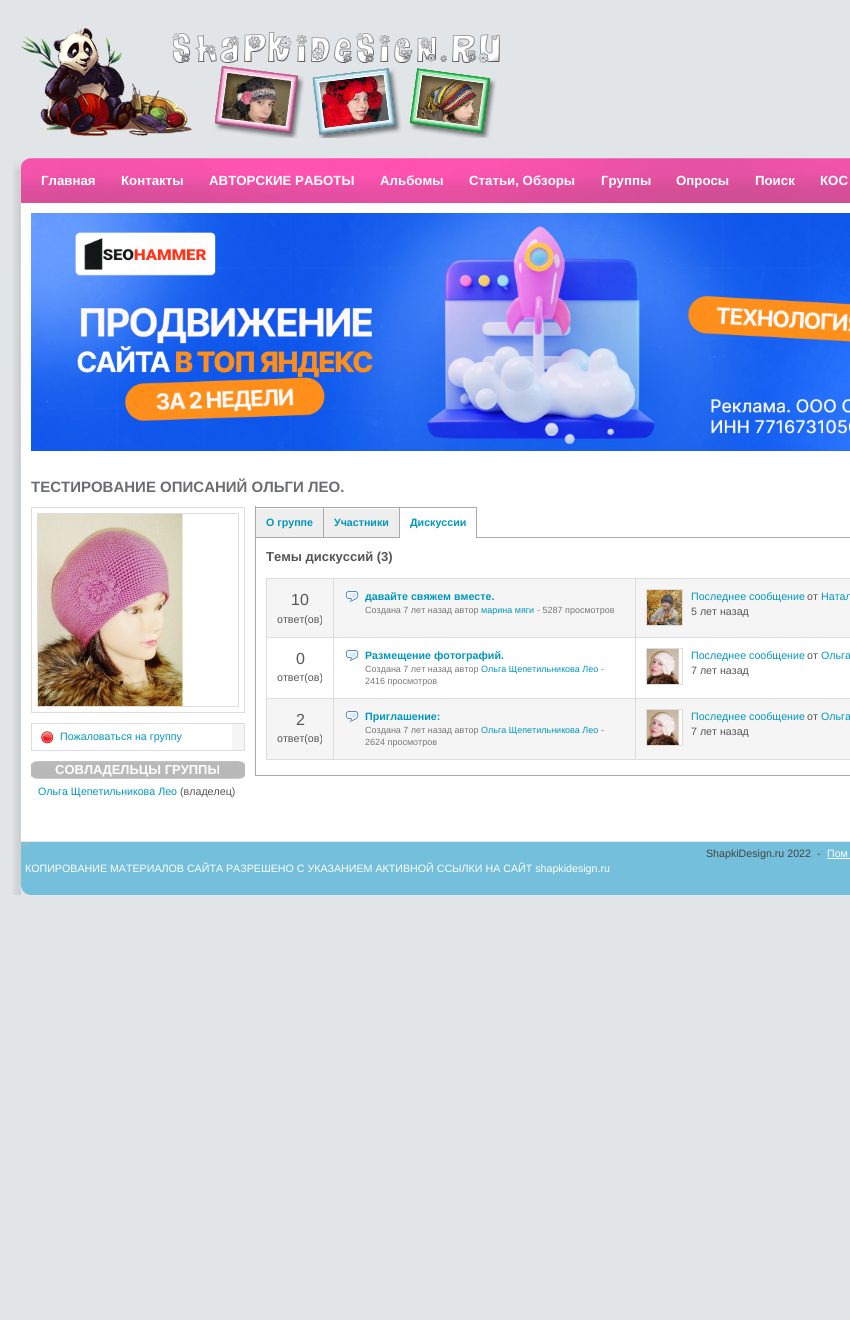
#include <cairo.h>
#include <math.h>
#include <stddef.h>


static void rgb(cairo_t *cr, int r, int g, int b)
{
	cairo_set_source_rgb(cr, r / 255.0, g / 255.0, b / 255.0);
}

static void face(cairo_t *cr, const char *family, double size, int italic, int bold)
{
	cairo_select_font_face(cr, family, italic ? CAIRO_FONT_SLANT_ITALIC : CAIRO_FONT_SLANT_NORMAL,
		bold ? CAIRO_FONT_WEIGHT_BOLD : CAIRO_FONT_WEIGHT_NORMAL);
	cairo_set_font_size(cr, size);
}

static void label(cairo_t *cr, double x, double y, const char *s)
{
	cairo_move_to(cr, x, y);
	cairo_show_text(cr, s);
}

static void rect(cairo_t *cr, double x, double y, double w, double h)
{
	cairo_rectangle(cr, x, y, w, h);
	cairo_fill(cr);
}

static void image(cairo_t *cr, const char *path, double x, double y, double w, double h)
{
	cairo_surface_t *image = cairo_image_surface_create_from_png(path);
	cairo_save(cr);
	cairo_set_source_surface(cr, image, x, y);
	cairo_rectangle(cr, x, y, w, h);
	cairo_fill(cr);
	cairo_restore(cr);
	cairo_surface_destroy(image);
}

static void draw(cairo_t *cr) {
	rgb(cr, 225, 229, 232);
	cairo_paint(cr);
	image(cr, "image0.png", 21, 28, 479, 110);
	image(cr, "image1.png", 12, 171, 9, 724);
	image(cr, "image2.png", 12, 158, 9, 13);
	rgb(cr, 255, 255, 255);
	rect(cr, 21, 203, 829, 638);
	image(cr, "image3.png", 21, 158, 829, 45);
	face(cr, "Liberation Sans", 13.25, 0, 1);
	label(cr, 41, 185, "Главная");
	label(cr, 121, 185, "Контакты");
	label(cr, 209, 185, "АВТОРСКИЕ РАБОТЫ");
	label(cr, 380, 185, "Альбомы");
	label(cr, 469, 185, "Статьи, Обзоры");
	label(cr, 601, 185, "Группы");
	label(cr, 676, 185, "Опросы");
	label(cr, 755, 185, "Поиск");
	label(cr, 820, 185, "КОС");
	image(cr, "image4.png", 31, 213, 819, 238);
	face(cr, "Liberation Sans", 15, 0, 1);
	rgb(cr, 108, 109, 112);
	label(cr, 31, 492, "ТЕСТИРОВАНИЕ ОПИСАНИЙ ОЛЬГИ ЛЕО.");
	rgb(cr, 170, 170, 170);
	rect(cr, 255, 506, 1, 32);
	rgb(cr, 238, 238, 238);
	rect(cr, 256, 509, 67, 28);
	rgb(cr, 170, 170, 170);
	rect(cr, 256, 507, 221, 1);
	rect(cr, 323, 507, 1, 31);
	rect(cr, 256, 537, 68, 1);
	face(cr, "Liberation Sans", 10.67, 0, 1);
	rgb(cr, 0, 150, 190);
	label(cr, 266, 526, "О группе");
	rgb(cr, 238, 238, 238);
	rect(cr, 324, 509, 75, 28);
	rgb(cr, 170, 170, 170);
	rect(cr, 399, 507, 1, 31);
	rect(cr, 324, 537, 76, 1);
	rgb(cr, 0, 150, 190);
	label(cr, 334, 526, "Участники");
	rgb(cr, 170, 170, 170);
	rect(cr, 476, 507, 1, 31);
	rgb(cr, 0, 150, 190);
	label(cr, 410, 526, "Дискуссии");
	rgb(cr, 170, 170, 170);
	rect(cr, 477, 537, 373, 1);
	rect(cr, 255, 775, 595, 1);
	rect(cr, 255, 538, 1, 238);
	face(cr, "Liberation Sans", 13, 0, 1);
	rgb(cr, 85, 85, 85);
	label(cr, 266, 561, "Темы дискуссий (3)");
	rgb(cr, 221, 221, 221);
	rect(cr, 266, 759, 584, 1);
	rect(cr, 266, 578, 1, 182);
	rgb(cr, 245, 245, 245);
	rect(cr, 267, 579, 66, 58);
	rgb(cr, 221, 221, 221);
	rect(cr, 266, 578, 584, 1);
	rect(cr, 266, 637, 584, 1);
	rect(cr, 266, 698, 584, 1);
	rect(cr, 333, 698, 1, 62);
	rect(cr, 333, 637, 1, 62);
	rect(cr, 333, 578, 1, 60);
	face(cr, "Liberation Sans", 16, 0, 0);
	rgb(cr, 85, 85, 85);
	label(cr, 291, 605, "10");
	face(cr, "Liberation Sans", 10.67, 0, 0);
	label(cr, 277, 623, "ответ(ов)");
	rgb(cr, 245, 245, 245);
	rect(cr, 334, 579, 301, 58);
	rgb(cr, 221, 221, 221);
	rect(cr, 635, 698, 1, 62);
	rect(cr, 635, 637, 1, 62);
	rect(cr, 635, 578, 1, 60);
	image(cr, "image5.png", 345, 591, 14, 11);
	face(cr, "Liberation Sans", 10.67, 0, 1);
	rgb(cr, 0, 150, 190);
	label(cr, 365, 600, "давайте свяжем вместе.");
	face(cr, "Liberation Sans", 9, 0, 0);
	rgb(cr, 119, 119, 119);
	label(cr, 365, 613, "Создана 7 лет назад автор");
	rgb(cr, 0, 150, 190);
	label(cr, 481, 613, "марина мяги");
	rgb(cr, 119, 119, 119);
	label(cr, 537, 613, "- 5287 просмотров");
	rgb(cr, 245, 245, 245);
	rect(cr, 636, 579, 214, 58);
	cairo_rectangle(cr, 646.5, 589.5, 36, 36);
	rgb(cr, 221, 221, 221);
	cairo_set_line_width(cr, 1);
	cairo_stroke(cr);
	image(cr, "image6.png", 647, 590, 35, 35);
	face(cr, "Liberation Sans", 10.67, 0, 0);
	rgb(cr, 0, 150, 190);
	label(cr, 691, 600, "Последнее сообщение");
	rgb(cr, 85, 85, 85);
	label(cr, 807, 600, "от");
	rgb(cr, 0, 150, 190);
	label(cr, 821, 600, "Натал");
	rgb(cr, 85, 85, 85);
	label(cr, 691, 615, "5 лет назад");
	face(cr, "Liberation Sans", 16, 0, 0);
	label(cr, 296, 664, "0");
	face(cr, "Liberation Sans", 10.67, 0, 0);
	label(cr, 277, 681, "ответ(ов)");
	image(cr, "image7.png", 345, 650, 14, 11);
	face(cr, "Liberation Sans", 10.67, 0, 1);
	rgb(cr, 0, 150, 190);
	label(cr, 365, 659, "Размещение фотографий.");
	face(cr, "Liberation Sans", 9, 0, 0);
	rgb(cr, 119, 119, 119);
	label(cr, 365, 672, "Создана 7 лет назад автор");
	rgb(cr, 0, 150, 190);
	label(cr, 481, 672, "Ольга Щепетильникова Лео");
	rgb(cr, 119, 119, 119);
	label(cr, 601, 672, "-");
	label(cr, 365, 684, "2416 просмотров");
	cairo_rectangle(cr, 646.5, 648.5, 36, 36);
	rgb(cr, 221, 221, 221);
	cairo_stroke(cr);
	image(cr, "image8.png", 647, 649, 33, 35);
	face(cr, "Liberation Sans", 10.67, 0, 0);
	rgb(cr, 0, 150, 190);
	label(cr, 691, 659, "Последнее сообщение");
	rgb(cr, 85, 85, 85);
	label(cr, 807, 659, "от");
	rgb(cr, 0, 150, 190);
	label(cr, 821, 659, "Ольга");
	rgb(cr, 85, 85, 85);
	label(cr, 691, 674, "7 лет назад");
	rgb(cr, 245, 245, 245);
	rect(cr, 267, 699, 66, 60);
	face(cr, "Liberation Sans", 16, 0, 0);
	rgb(cr, 85, 85, 85);
	label(cr, 296, 725, "2");
	face(cr, "Liberation Sans", 10.67, 0, 0);
	label(cr, 277, 742, "ответ(ов)");
	rgb(cr, 245, 245, 245);
	rect(cr, 334, 699, 301, 60);
	image(cr, "image5.png", 345, 711, 14, 11);
	face(cr, "Liberation Sans", 10.67, 0, 1);
	rgb(cr, 0, 150, 190);
	label(cr, 365, 720, "Приглашение:");
	face(cr, "Liberation Sans", 9, 0, 0);
	rgb(cr, 119, 119, 119);
	label(cr, 365, 733, "Создана 7 лет назад автор");
	rgb(cr, 0, 150, 190);
	label(cr, 481, 733, "Ольга Щепетильникова Лео");
	rgb(cr, 119, 119, 119);
	label(cr, 601, 733, "-");
	label(cr, 365, 745, "2624 просмотров");
	rgb(cr, 245, 245, 245);
	rect(cr, 636, 699, 214, 60);
	cairo_rectangle(cr, 646.5, 709.5, 36, 36);
	rgb(cr, 221, 221, 221);
	cairo_stroke(cr);
	image(cr, "image9.png", 647, 710, 35, 35);
	face(cr, "Liberation Sans", 10.67, 0, 0);
	rgb(cr, 0, 150, 190);
	label(cr, 691, 720, "Последнее сообщение");
	rgb(cr, 85, 85, 85);
	label(cr, 807, 720, "от");
	rgb(cr, 0, 150, 190);
	label(cr, 821, 720, "Ольга");
	rgb(cr, 85, 85, 85);
	label(cr, 691, 735, "7 лет назад");
	rgb(cr, 221, 221, 221);
	rect(cr, 31, 507, 214, 1);
	rect(cr, 244, 507, 1, 206);
	rect(cr, 31, 712, 214, 1);
	rect(cr, 31, 507, 1, 206);
	cairo_rectangle(cr, 37.5, 513.5, 201, 193);
	cairo_stroke(cr);
	image(cr, "image10.png", 38, 514, 146, 192);
	rect(cr, 31, 723, 214, 1);
	rect(cr, 244, 723, 1, 28);
	rect(cr, 31, 723, 1, 28);
	rgb(cr, 245, 245, 245);
	rect(cr, 232, 724, 12, 26);
	rgb(cr, 221, 221, 221);
	rect(cr, 32, 750, 212, 1);
	image(cr, "image11.png", 41, 731, 13, 13);
	rgb(cr, 0, 150, 190);
	label(cr, 60, 740, "Пожаловаться на группу");
	image(cr, "image12.png", 31, 761, 214, 18);
	face(cr, "Liberation Sans", 13, 0, 1);
	rgb(cr, 255, 255, 255);
	label(cr, 55, 774, "СОВЛАДЕЛЬЦЫ ГРУППЫ");
	face(cr, "Liberation Sans", 10.67, 0, 0);
	rgb(cr, 0, 150, 190);
	label(cr, 38, 795, "Ольга Щепетильникова Лео");
	rgb(cr, 85, 85, 85);
	label(cr, 180, 795, "(владелец)");
	rgb(cr, 116, 191, 219);
	rect(cr, 30, 842, 820, 53);
	image(cr, "image13.png", 21, 842, 9, 53);
	rgb(cr, 231, 233, 234);
	rect(cr, 21, 841, 829, 1);
	rgb(cr, 68, 68, 68);
	label(cr, 706, 857, "ShapkiDesign.ru 2022  -");
	rgb(cr, 255, 255, 255);
	label(cr, 827, 857, "Пом");
	rect(cr, 827, 858, 23, 1);
	label(cr, 25, 872, "КОПИРОВАНИЕ МАТЕРИАЛОВ САЙТА РАЗРЕШЕНО С УКАЗАНИЕМ АКТИВНОЙ ССЫЛКИ НА САЙТ shapkidesign.ru");
}

int main(void) {
	cairo_surface_t *surface = cairo_image_surface_create(CAIRO_FORMAT_RGB24, 850, 1320);
	cairo_t *cr = cairo_create(surface);
	cairo_font_options_t *options = cairo_font_options_create();
	cairo_font_options_set_hint_metrics(options, CAIRO_HINT_METRICS_OFF);
	cairo_font_options_set_hint_style(options, CAIRO_HINT_STYLE_NONE);
	cairo_set_font_options(cr, options);
	cairo_set_miter_limit(cr, 4);
	draw(cr);
	cairo_surface_write_to_png(surface, "render.png");
	cairo_font_options_destroy(options);
	cairo_destroy(cr);
	cairo_surface_destroy(surface);
	return 0;
}
